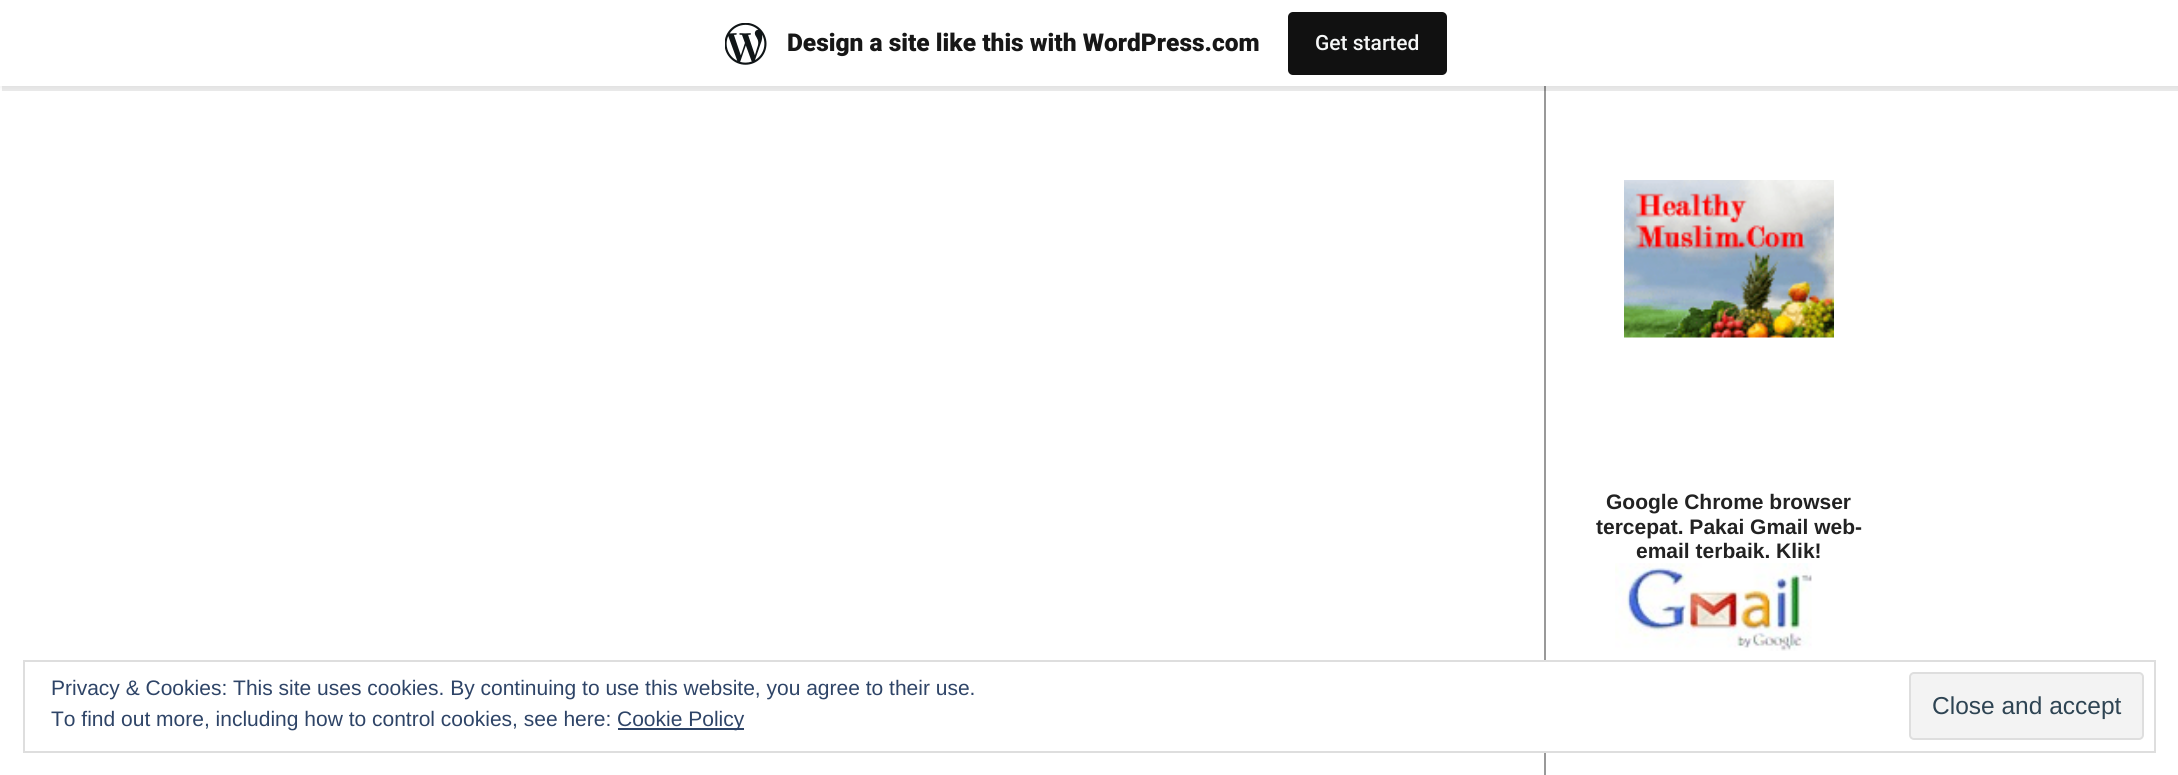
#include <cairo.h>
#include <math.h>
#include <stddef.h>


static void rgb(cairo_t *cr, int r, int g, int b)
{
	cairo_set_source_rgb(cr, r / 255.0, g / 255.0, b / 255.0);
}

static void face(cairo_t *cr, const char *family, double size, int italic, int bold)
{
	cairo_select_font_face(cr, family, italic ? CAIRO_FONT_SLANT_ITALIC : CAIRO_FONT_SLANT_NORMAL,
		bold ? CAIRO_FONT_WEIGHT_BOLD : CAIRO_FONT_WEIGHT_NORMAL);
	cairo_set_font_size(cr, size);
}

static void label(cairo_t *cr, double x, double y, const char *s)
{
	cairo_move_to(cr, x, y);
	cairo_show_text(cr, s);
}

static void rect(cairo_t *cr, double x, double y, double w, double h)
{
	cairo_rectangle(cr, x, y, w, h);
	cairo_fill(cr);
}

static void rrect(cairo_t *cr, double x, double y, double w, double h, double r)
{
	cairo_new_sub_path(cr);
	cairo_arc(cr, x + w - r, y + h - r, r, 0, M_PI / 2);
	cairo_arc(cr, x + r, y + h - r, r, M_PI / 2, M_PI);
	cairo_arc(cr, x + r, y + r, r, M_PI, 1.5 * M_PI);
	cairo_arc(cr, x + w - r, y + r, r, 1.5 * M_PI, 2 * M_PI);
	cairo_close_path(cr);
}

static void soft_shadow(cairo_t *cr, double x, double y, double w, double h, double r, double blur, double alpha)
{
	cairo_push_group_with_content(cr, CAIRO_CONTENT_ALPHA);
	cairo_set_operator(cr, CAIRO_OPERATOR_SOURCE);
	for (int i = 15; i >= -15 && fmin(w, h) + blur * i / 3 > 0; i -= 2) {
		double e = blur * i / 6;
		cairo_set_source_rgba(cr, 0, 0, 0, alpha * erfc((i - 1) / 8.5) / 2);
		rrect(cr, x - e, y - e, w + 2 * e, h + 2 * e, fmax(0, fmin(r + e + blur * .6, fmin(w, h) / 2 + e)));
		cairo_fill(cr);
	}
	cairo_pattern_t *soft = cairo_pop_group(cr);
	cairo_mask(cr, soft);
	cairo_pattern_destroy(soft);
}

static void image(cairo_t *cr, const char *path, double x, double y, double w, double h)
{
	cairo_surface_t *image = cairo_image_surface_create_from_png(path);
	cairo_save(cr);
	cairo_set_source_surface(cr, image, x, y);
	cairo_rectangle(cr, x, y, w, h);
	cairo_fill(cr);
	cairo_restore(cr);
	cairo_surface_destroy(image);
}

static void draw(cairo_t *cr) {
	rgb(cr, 255, 255, 255);
	cairo_paint(cr);
	rgb(cr, 153, 153, 153);
	rect(cr, 1544, 86, 2, 689);
	rgb(cr, 0, 0, 0);
	soft_shadow(cr, 0, 2, 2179, 86, 0, 2, 0.05);
	cairo_set_source_rgba(cr, 0, 0, 0, 0.08);
	cairo_new_path(cr);
	cairo_move_to(cr, 2, 86);
	cairo_line_to(cr, 2, 91);
	cairo_line_to(cr, 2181, 91);
	cairo_line_to(cr, 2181, 5);
	cairo_line_to(cr, 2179, 5);
	cairo_line_to(cr, 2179, 86);
	cairo_close_path(cr);
	cairo_fill(cr);
	rgb(cr, 255, 255, 255);
	rect(cr, 0, 0, 2178, 86);
	image(cr, "image0.png", 725, 23, 42, 42);
	face(cr, "Roboto Black", 24.5, 0, 0);
	rgb(cr, 23, 23, 23);
	label(cr, 787, 51, "Design a site like this with WordPress.com");
	rgb(cr, 17, 17, 17);
	rrect(cr, 1288, 12, 159, 63, 5);
	cairo_fill(cr);
	face(cr, "Roboto Medium", 21, 0, 0);
	rgb(cr, 246, 247, 247);
	label(cr, 1315, 50, "Get started");
	image(cr, "image1.png", 1624, 180, 210, 158);
	face(cr, "Liberation Sans", 21, 0, 1);
	rgb(cr, 34, 34, 34);
	label(cr, 1606, 509, "Google Chrome browser");
	label(cr, 1596, 534, "tercepat. Pakai Gmail web-");
	label(cr, 1636, 558, "email terbaik. Klik!");
	image(cr, "image2.png", 1615, 563, 197, 88);
	rgb(cr, 255, 255, 255);
	rect(cr, 1544, 662, 2, 89);
	cairo_rectangle(cr, 24, 661, 2131, 91);
	rgb(cr, 222, 222, 222);
	cairo_stroke(cr);
	face(cr, "Liberation Sans", 21, 0, 0);
	rgb(cr, 46, 68, 103);
	label(cr, 51, 695, "Privacy & Cookies: This site uses cookies. By continuing to use this website, you agree to their use.");
	label(cr, 51, 726, "To find out more, including how to control cookies, see here:");
	rect(cr, 618, 728, 126, 2);
	label(cr, 617, 726, "Cookie Policy");
	rgb(cr, 243, 243, 243);
	rrect(cr, 1910, 673, 233, 66, 4);
	cairo_fill_preserve(cr);
	rgb(cr, 222, 222, 222);
	cairo_stroke(cr);
	face(cr, "Liberation Sans", 24.5, 0, 0);
	rgb(cr, 46, 68, 83);
	label(cr, 1932, 714, "Close and accept");
}

int main(void) {
	cairo_surface_t *surface = cairo_image_surface_create(CAIRO_FORMAT_RGB24, 2178, 775);
	cairo_t *cr = cairo_create(surface);
	cairo_font_options_t *options = cairo_font_options_create();
	cairo_font_options_set_hint_metrics(options, CAIRO_HINT_METRICS_OFF);
	cairo_font_options_set_hint_style(options, CAIRO_HINT_STYLE_NONE);
	cairo_set_font_options(cr, options);
	cairo_set_miter_limit(cr, 4);
	draw(cr);
	cairo_surface_write_to_png(surface, "render.png");
	cairo_font_options_destroy(options);
	cairo_destroy(cr);
	cairo_surface_destroy(surface);
	return 0;
}
